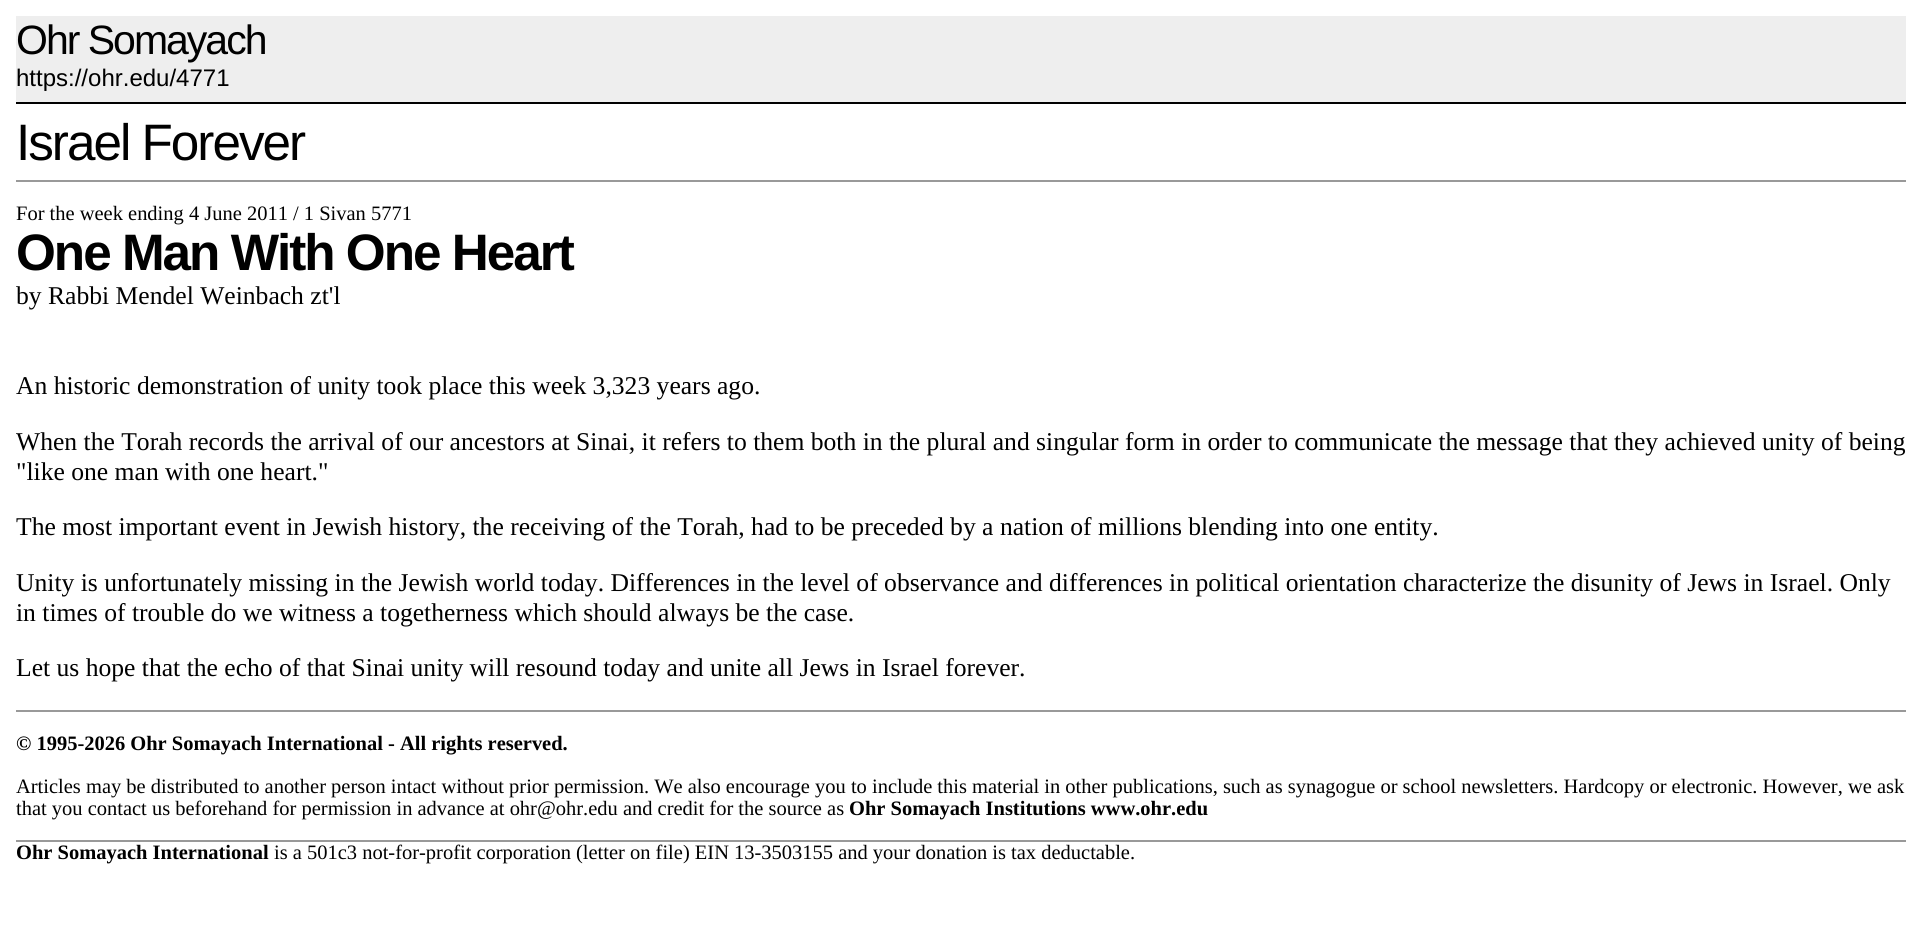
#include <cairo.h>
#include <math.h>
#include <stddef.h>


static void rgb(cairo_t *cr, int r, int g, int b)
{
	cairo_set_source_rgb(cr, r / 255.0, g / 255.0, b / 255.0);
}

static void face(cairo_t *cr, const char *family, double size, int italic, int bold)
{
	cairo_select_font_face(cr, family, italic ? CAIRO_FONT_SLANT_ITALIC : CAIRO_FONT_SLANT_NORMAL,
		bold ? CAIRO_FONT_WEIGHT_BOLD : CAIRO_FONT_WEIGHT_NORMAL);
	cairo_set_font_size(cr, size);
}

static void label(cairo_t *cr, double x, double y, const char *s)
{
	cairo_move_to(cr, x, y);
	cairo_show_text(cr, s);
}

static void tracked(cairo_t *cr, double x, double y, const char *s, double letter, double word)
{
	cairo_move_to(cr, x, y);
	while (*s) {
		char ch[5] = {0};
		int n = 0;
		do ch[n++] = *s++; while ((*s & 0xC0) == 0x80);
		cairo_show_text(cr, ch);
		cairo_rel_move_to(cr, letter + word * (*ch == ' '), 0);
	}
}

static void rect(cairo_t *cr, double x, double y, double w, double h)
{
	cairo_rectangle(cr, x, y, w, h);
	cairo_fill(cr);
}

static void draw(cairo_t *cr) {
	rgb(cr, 255, 255, 255);
	cairo_paint(cr);
	rgb(cr, 238, 238, 238);
	rect(cr, 16, 16, 1890, 86);
	rgb(cr, 0, 0, 0);
	rect(cr, 16, 102, 1890, 2);
	face(cr, "Liberation Sans", 41, 0, 0);
	tracked(cr, 16, 54, "Ohr Somayach", -2, 0);
	face(cr, "Liberation Sans", 24, 0, 0);
	label(cr, 16, 86, "https://ohr.edu/4771");
	rgb(cr, 153, 153, 153);
	rect(cr, 16, 180, 1890, 2);
	face(cr, "Liberation Sans", 51.25, 0, 0);
	rgb(cr, 0, 0, 0);
	tracked(cr, 16, 160, "Israel Forever", -2, 0);
	face(cr, "Liberation Serif", 20.48, 0, 0);
	label(cr, 16, 220, "For the week ending 4 June 2011 / 1 Sivan 5771");
	face(cr, "Liberation Sans", 51.25, 0, 1);
	tracked(cr, 16, 270, "One Man With One Heart", -2, 0);
	face(cr, "Liberation Serif", 25.6, 0, 0);
	label(cr, 16, 304, "by Rabbi Mendel Weinbach zt'l");
	label(cr, 16, 394, "An historic demonstration of unity took place this week 3,323 years ago.");
	label(cr, 16, 450, "When the Torah records the arrival of our ancestors at Sinai, it refers to them both in the plural and singular form in order to communicate the message that they achieved unity of being");
	label(cr, 16, 480, "\"like one man with one heart.\"");
	label(cr, 16, 535, "The most important event in Jewish history, the receiving of the Torah, had to be preceded by a nation of millions blending into one entity.");
	label(cr, 16, 591, "Unity is unfortunately missing in the Jewish world today. Differences in the level of observance and differences in political orientation characterize the disunity of Jews in Israel. Only");
	label(cr, 16, 621, "in times of trouble do we witness a togetherness which should always be the case.");
	label(cr, 16, 676, "Let us hope that the echo of that Sinai unity will resound today and unite all Jews in Israel forever.");
	rgb(cr, 153, 153, 153);
	rect(cr, 16, 710, 1890, 2);
	face(cr, "Liberation Serif", 20.48, 0, 1);
	rgb(cr, 0, 0, 0);
	label(cr, 16, 750, "© 1995-2026 Ohr Somayach International - All rights reserved.");
	face(cr, "Liberation Serif", 20.48, 0, 0);
	label(cr, 16, 793, "Articles may be distributed to another person intact without prior permission. We also encourage you to include this material in other publications, such as synagogue or school newsletters. Hardcopy or electronic. However, we ask");
	label(cr, 16, 815, "that you contact us beforehand for permission in advance at ohr@ohr.edu and credit for the source as");
	face(cr, "Liberation Serif", 20.48, 0, 1);
	label(cr, 849, 815, "Ohr Somayach Institutions www.ohr.edu");
	rgb(cr, 153, 153, 153);
	rect(cr, 16, 840, 1890, 2);
	rgb(cr, 0, 0, 0);
	label(cr, 16, 859, "Ohr Somayach International");
	face(cr, "Liberation Serif", 20.48, 0, 0);
	label(cr, 274, 859, "is a 501c3 not-for-profit corporation (letter on file) EIN 13-3503155 and your donation is tax deductable.");
}

int main(void) {
	cairo_surface_t *surface = cairo_image_surface_create(CAIRO_FORMAT_RGB24, 1922, 941);
	cairo_t *cr = cairo_create(surface);
	cairo_font_options_t *options = cairo_font_options_create();
	cairo_font_options_set_hint_metrics(options, CAIRO_HINT_METRICS_OFF);
	cairo_font_options_set_hint_style(options, CAIRO_HINT_STYLE_NONE);
	cairo_set_font_options(cr, options);
	cairo_set_miter_limit(cr, 4);
	draw(cr);
	cairo_surface_write_to_png(surface, "render.png");
	cairo_font_options_destroy(options);
	cairo_destroy(cr);
	cairo_surface_destroy(surface);
	return 0;
}
